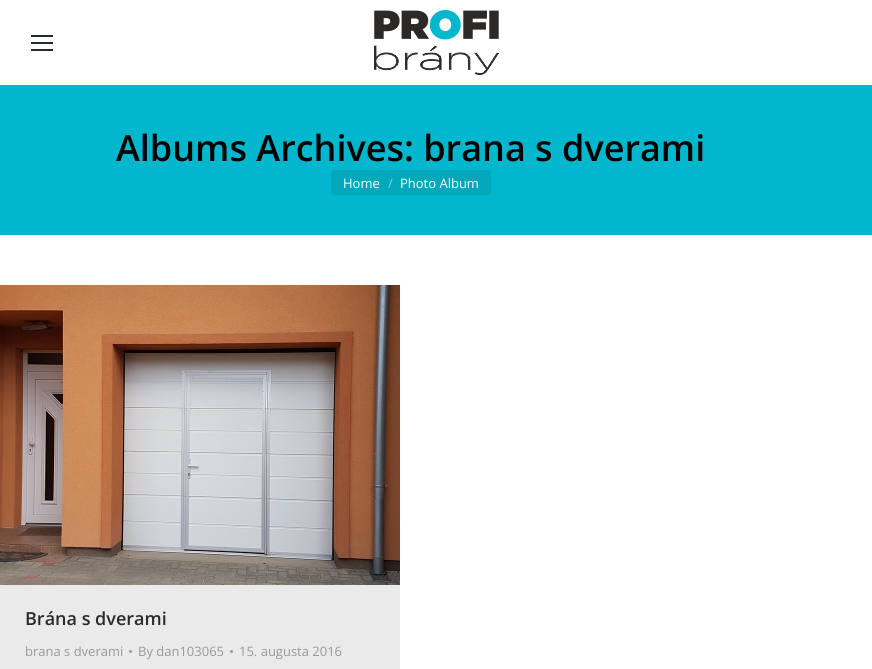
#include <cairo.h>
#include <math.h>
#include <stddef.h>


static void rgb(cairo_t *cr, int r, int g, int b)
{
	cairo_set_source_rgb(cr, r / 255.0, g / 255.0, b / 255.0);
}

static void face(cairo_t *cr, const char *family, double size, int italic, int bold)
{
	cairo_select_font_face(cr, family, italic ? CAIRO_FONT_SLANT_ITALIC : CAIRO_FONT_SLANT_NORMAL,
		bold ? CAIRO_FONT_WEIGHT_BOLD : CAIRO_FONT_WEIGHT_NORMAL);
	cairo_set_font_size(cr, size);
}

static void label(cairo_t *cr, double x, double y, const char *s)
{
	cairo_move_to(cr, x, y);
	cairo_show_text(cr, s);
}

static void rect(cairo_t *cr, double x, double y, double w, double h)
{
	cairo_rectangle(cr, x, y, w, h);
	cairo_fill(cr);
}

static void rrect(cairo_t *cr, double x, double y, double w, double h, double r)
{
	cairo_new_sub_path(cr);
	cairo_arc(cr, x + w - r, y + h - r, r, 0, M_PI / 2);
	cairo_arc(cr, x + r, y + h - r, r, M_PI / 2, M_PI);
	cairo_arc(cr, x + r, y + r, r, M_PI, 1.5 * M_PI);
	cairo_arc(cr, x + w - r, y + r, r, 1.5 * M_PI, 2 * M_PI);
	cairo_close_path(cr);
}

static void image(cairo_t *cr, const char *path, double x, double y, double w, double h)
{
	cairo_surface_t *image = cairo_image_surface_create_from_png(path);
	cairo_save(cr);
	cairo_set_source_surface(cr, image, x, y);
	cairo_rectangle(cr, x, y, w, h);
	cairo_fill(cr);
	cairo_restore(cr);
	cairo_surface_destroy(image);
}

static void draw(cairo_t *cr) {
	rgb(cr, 255, 255, 255);
	cairo_paint(cr);
	rgb(cr, 38, 43, 46);
	rect(cr, 31, 35, 22, 2);
	rect(cr, 31, 42, 22, 2);
	rect(cr, 31, 49, 22, 2);
	image(cr, "image0.png", 374, 10, 125, 65);
	rgb(cr, 0, 183, 205);
	rect(cr, 0, 85, 872, 150);
	face(cr, "Open Sans SemiBold", 36, 0, 0);
	rgb(cr, 0, 0, 0);
	label(cr, 116, 161, "Albums Archives: brana s dverami");
	rgb(cr, 2, 167, 186);
	rrect(cr, 331, 170, 160, 25, 3);
	cairo_fill(cr);
	face(cr, "Open Sans", 13, 0, 0);
	rgb(cr, 255, 255, 255);
	label(cr, 343, 188, "Home");
	rgb(cr, 129, 211, 221);
	label(cr, 388, 188, "/");
	rgb(cr, 255, 255, 255);
	label(cr, 400, 188, "Photo Album");
	rgb(cr, 234, 234, 234);
	rect(cr, 0, 585, 400, 84);
	image(cr, "image1.png", 0, 285, 400, 300);
	face(cr, "Open Sans SemiBold", 18, 0, 0);
	rgb(cr, 38, 43, 46);
	label(cr, 25, 625, "Brána s dverami");
	face(cr, "Open Sans", 13, 0, 0);
	rgb(cr, 153, 153, 153);
	label(cr, 25, 656, "brana s dverami");
	cairo_new_path(cr);
	cairo_arc(cr, 130.5, 651.5, 1.5, 0, 2 * M_PI);
	cairo_fill(cr);
	label(cr, 138, 656, "By dan103065");
	cairo_new_path(cr);
	cairo_arc(cr, 231.5, 651.5, 1.5, 0, 2 * M_PI);
	cairo_fill(cr);
	label(cr, 239, 656, "15. augusta 2016");
}

int main(void) {
	cairo_surface_t *surface = cairo_image_surface_create(CAIRO_FORMAT_RGB24, 872, 669);
	cairo_t *cr = cairo_create(surface);
	cairo_font_options_t *options = cairo_font_options_create();
	cairo_font_options_set_hint_metrics(options, CAIRO_HINT_METRICS_OFF);
	cairo_font_options_set_hint_style(options, CAIRO_HINT_STYLE_NONE);
	cairo_set_font_options(cr, options);
	cairo_set_miter_limit(cr, 4);
	draw(cr);
	cairo_surface_write_to_png(surface, "render.png");
	cairo_font_options_destroy(options);
	cairo_destroy(cr);
	cairo_surface_destroy(surface);
	return 0;
}
